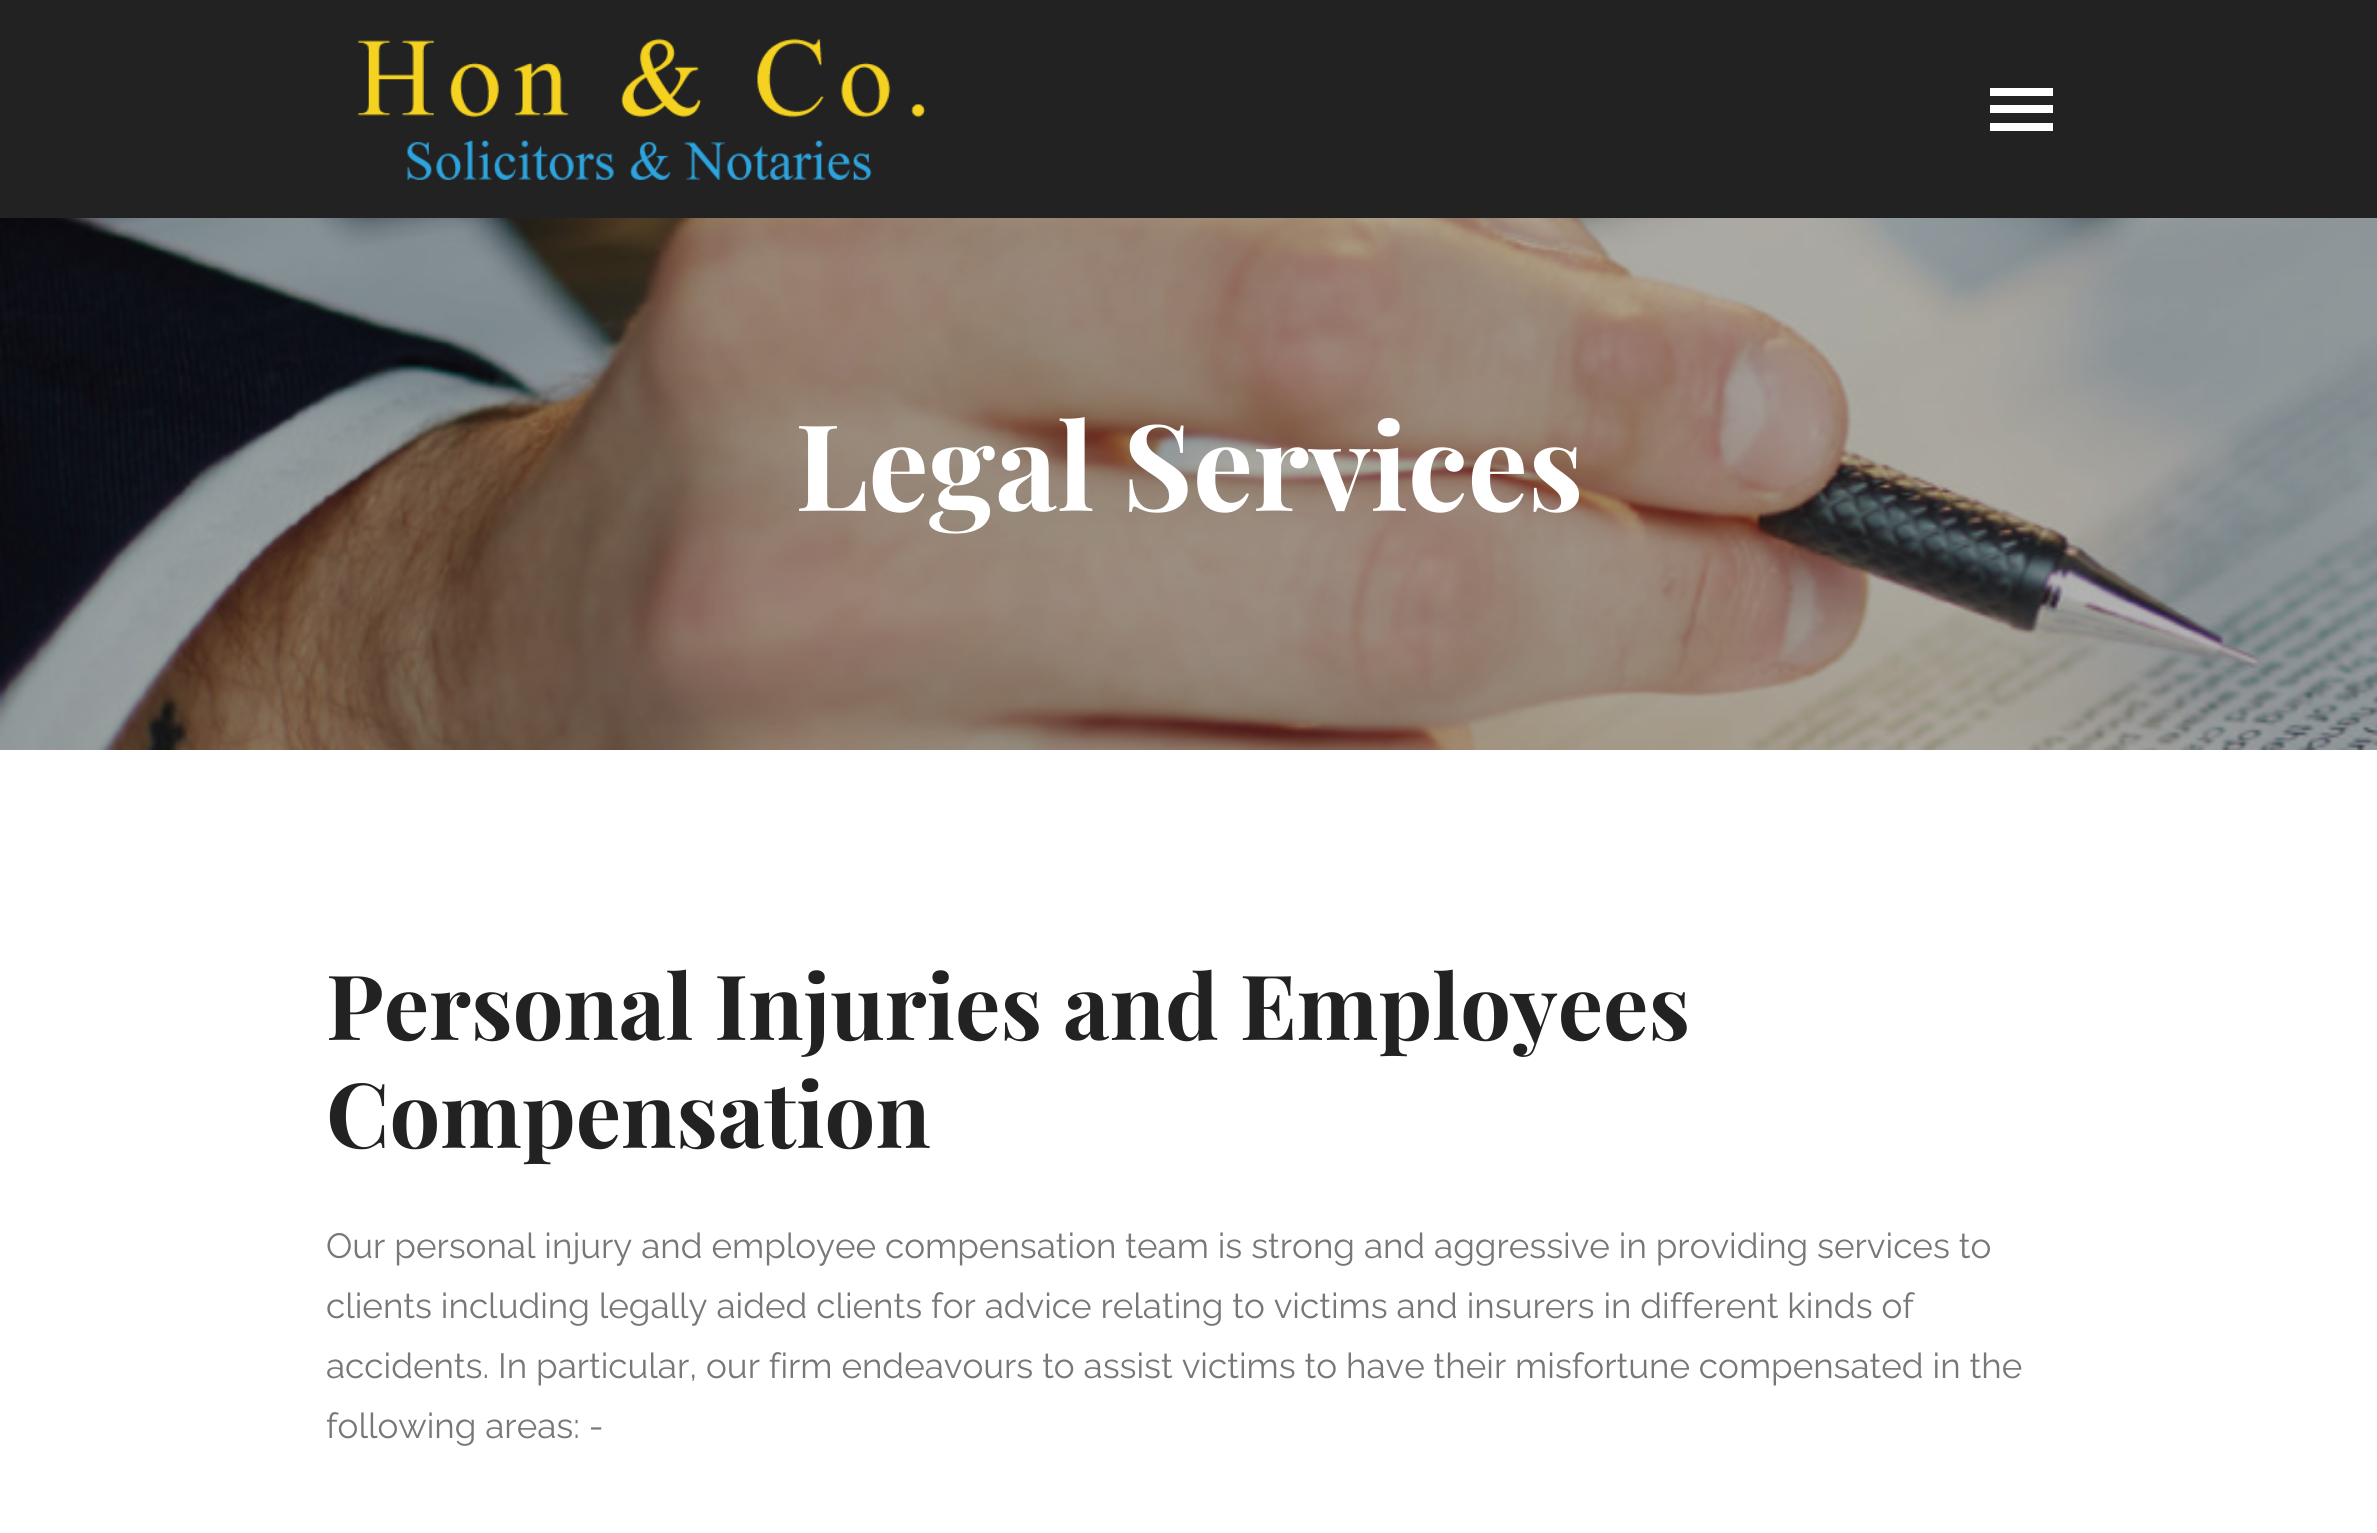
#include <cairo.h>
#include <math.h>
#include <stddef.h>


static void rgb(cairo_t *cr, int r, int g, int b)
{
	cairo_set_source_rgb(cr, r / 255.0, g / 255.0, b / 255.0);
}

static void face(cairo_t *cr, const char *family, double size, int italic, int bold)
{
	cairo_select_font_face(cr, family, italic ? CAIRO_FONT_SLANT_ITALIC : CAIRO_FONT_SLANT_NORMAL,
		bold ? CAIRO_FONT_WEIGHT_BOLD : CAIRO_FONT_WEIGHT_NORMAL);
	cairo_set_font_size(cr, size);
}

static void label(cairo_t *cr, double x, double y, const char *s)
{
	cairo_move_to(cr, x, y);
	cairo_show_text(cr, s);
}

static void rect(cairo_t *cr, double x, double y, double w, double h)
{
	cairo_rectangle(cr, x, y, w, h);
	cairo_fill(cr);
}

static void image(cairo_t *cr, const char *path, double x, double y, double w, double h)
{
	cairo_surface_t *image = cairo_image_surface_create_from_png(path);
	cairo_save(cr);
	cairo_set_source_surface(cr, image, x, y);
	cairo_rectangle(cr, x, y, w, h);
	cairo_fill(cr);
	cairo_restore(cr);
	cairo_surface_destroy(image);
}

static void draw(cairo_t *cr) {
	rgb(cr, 255, 255, 255);
	cairo_paint(cr);
	rgb(cr, 34, 34, 34);
	rect(cr, 0, 0, 2377, 218);
	image(cr, "image0.png", 357, 38, 569, 142);
	rgb(cr, 255, 255, 255);
	rect(cr, 1990, 88, 63, 8);
	rect(cr, 1990, 105, 63, 8);
	rect(cr, 1990, 123, 63, 8);
	image(cr, "image1.png", 0, 218, 2377, 532);
	face(cr, "Playfair Display", 120, 0, 1);
	label(cr, 795, 511, "Legal Services");
	face(cr, "Playfair Display", 90, 0, 1);
	rgb(cr, 34, 34, 34);
	label(cr, 326, 1040, "Personal Injuries and Employees");
	label(cr, 326, 1148, "Compensation");
	face(cr, "Raleway", 35, 0, 0);
	rgb(cr, 119, 119, 119);
	label(cr, 326, 1258, "Our personal injury and employee compensation team is strong and aggressive in providing services to");
	label(cr, 326, 1318, "clients including legally aided clients for advice relating to victims and insurers in different kinds of");
	label(cr, 326, 1378, "accidents. In particular, our firm endeavours to assist victims to have their misfortune compensated in the");
	label(cr, 326, 1438, "following areas: -");
}

int main(void) {
	cairo_surface_t *surface = cairo_image_surface_create(CAIRO_FORMAT_RGB24, 2377, 1533);
	cairo_t *cr = cairo_create(surface);
	cairo_font_options_t *options = cairo_font_options_create();
	cairo_font_options_set_hint_metrics(options, CAIRO_HINT_METRICS_OFF);
	cairo_font_options_set_hint_style(options, CAIRO_HINT_STYLE_NONE);
	cairo_set_font_options(cr, options);
	cairo_set_miter_limit(cr, 4);
	draw(cr);
	cairo_surface_write_to_png(surface, "render.png");
	cairo_font_options_destroy(options);
	cairo_destroy(cr);
	cairo_surface_destroy(surface);
	return 0;
}
